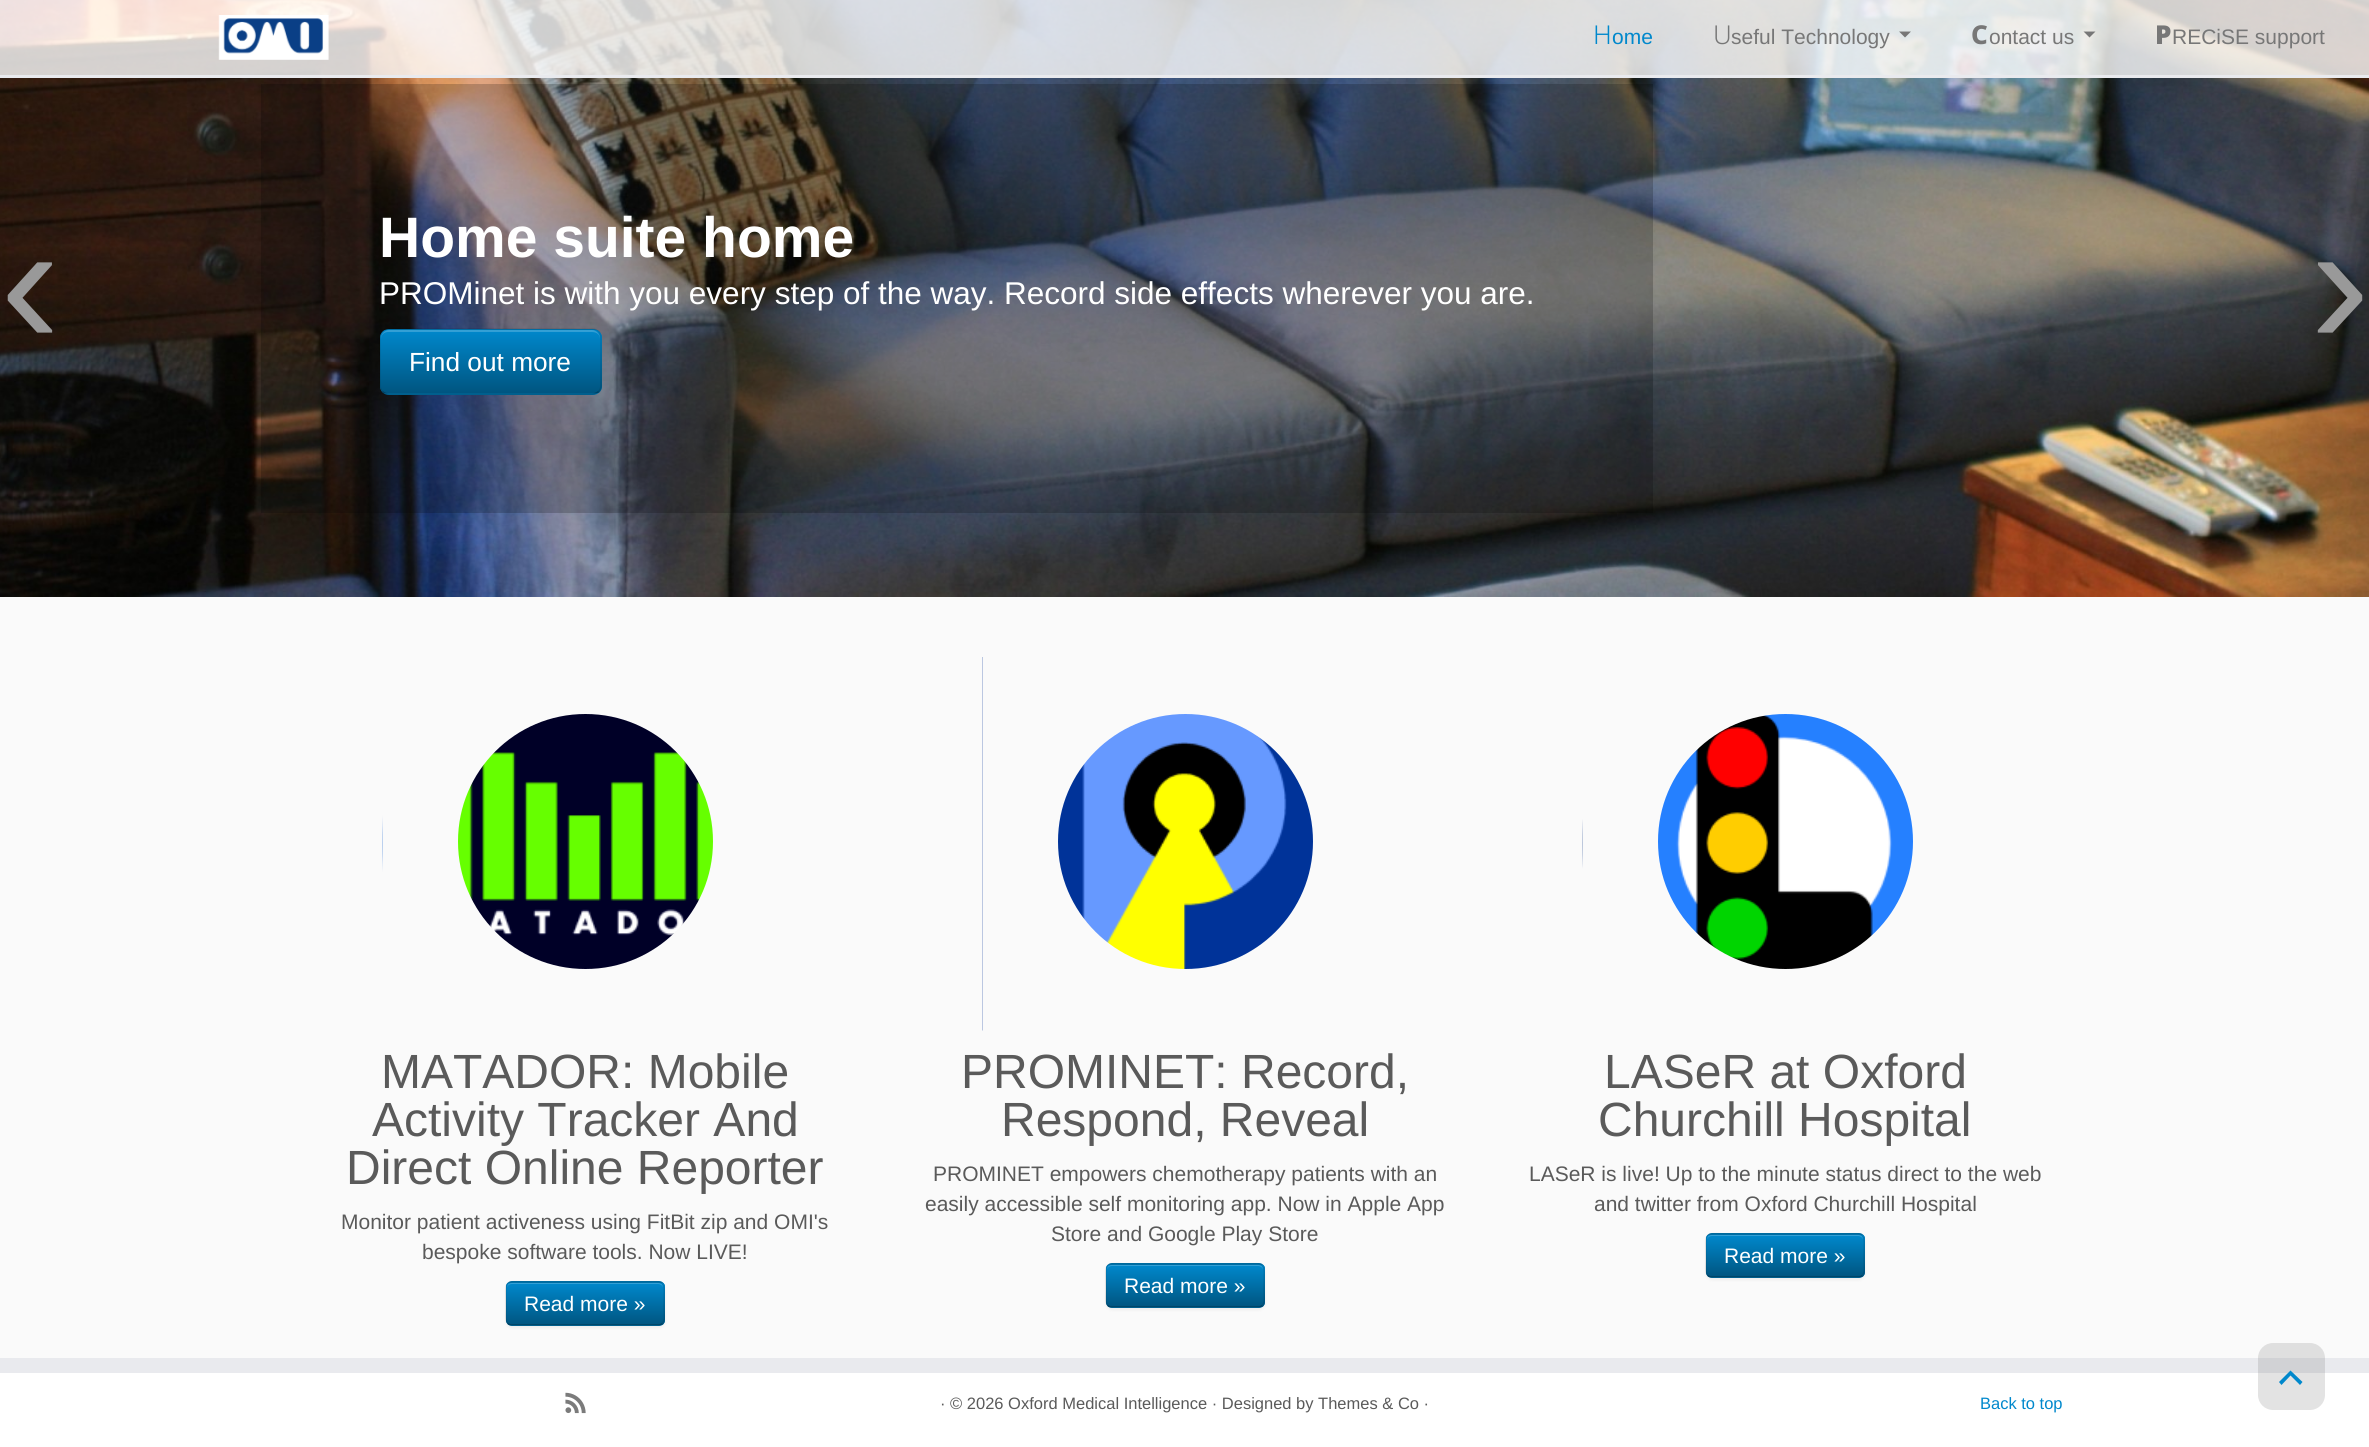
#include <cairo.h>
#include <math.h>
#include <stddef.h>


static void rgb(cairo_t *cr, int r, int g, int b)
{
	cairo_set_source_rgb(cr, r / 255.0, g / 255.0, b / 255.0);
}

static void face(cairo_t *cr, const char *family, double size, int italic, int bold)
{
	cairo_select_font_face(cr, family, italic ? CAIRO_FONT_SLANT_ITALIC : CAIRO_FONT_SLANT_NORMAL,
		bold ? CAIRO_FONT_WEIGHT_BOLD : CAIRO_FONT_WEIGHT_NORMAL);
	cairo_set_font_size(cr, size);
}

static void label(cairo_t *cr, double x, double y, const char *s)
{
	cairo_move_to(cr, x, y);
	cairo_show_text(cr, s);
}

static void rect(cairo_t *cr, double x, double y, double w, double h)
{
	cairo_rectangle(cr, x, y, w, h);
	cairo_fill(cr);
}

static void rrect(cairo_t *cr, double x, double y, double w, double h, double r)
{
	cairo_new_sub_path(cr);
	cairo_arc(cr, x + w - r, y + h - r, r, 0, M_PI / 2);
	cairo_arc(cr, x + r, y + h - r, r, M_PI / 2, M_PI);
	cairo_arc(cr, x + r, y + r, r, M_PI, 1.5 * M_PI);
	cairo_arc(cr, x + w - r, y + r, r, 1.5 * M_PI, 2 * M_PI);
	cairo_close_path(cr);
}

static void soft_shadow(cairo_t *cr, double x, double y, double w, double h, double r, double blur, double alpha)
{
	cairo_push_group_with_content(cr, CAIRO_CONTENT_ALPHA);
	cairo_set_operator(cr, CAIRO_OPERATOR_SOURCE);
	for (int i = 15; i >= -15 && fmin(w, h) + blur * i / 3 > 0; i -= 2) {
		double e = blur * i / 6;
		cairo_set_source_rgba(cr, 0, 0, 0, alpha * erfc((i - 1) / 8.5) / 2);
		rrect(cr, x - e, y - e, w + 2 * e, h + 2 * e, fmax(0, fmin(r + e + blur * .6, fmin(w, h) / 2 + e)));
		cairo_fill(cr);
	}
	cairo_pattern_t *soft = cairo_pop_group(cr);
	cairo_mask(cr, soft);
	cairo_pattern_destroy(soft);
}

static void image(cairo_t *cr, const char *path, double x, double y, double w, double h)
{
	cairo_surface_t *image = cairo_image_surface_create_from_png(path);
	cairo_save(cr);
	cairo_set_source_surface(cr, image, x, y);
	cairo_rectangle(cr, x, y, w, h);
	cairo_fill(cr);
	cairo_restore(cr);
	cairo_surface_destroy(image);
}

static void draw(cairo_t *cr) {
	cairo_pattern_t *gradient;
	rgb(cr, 250, 250, 250);
	cairo_paint(cr);
	image(cr, "image1.png", 0, 0, 2369, 597);
	cairo_set_source_rgba(cr, 1, 1, 1, 0.8);
	rect(cr, 0, 0, 2369, 75);
	rgb(cr, 233, 234, 238);
	rect(cr, 0, 75, 2369, 3);
	image(cr, "image0.png", 218, 15, 111, 45);
	face(cr, "Noto Sans Light", 26, 0, 0);
	rgb(cr, 0, 136, 204);
	label(cr, 1593, 44, "H");
	face(cr, "Liberation Sans", 21, 0, 0);
	label(cr, 1612, 44, "ome");
	face(cr, "Noto Sans Light", 26, 0, 0);
	rgb(cr, 119, 119, 119);
	label(cr, 1713, 44, "U");
	face(cr, "Liberation Sans", 21, 0, 0);
	label(cr, 1731, 44, "seful Technology");
	cairo_new_path(cr);
	cairo_move_to(cr, 1899, 31.5);
	cairo_line_to(cr, 1911, 31.5);
	cairo_line_to(cr, 1905, 37.5);
	cairo_close_path(cr);
	cairo_fill(cr);
	face(cr, "Noto Sans ExtraBold", 26, 0, 0);
	label(cr, 1971, 44, "C");
	face(cr, "Liberation Sans", 21, 0, 0);
	label(cr, 1989, 44, "ontact us");
	cairo_new_path(cr);
	cairo_move_to(cr, 2083.5, 31.5);
	cairo_line_to(cr, 2095.5, 31.5);
	cairo_line_to(cr, 2089.5, 37.5);
	cairo_close_path(cr);
	cairo_fill(cr);
	face(cr, "Noto Sans Black", 26, 0, 0);
	label(cr, 2155, 44, "P");
	face(cr, "Liberation Sans", 21, 0, 0);
	label(cr, 2172, 44, "RECiSE support");
	face(cr, "Liberation Sans", 180, 0, 0);
	rgb(cr, 153, 153, 153);
	label(cr, 0, 345, "‹");
	cairo_set_source_rgba(cr, 0, 0, 0, 0.2);
	rect(cr, 261, 84, 1392, 429);
	face(cr, "Liberation Sans", 57, 0, 1);
	rgb(cr, 255, 255, 255);
	label(cr, 379, 257, "Home suite home");
	face(cr, "Liberation Sans", 31.5, 0, 0);
	label(cr, 379, 304, "PROMinet is with you every step of the way. Record side effects wherever you are.");
	rgb(cr, 0, 116, 173);
	rrect(cr, 380, 329, 222, 66, 9);
	cairo_fill(cr);
	cairo_save(cr);
	rrect(cr, 380, 329, 222, 66, 9);
	cairo_clip(cr);
	gradient = cairo_pattern_create_linear(491, 330, 491, 393);
	cairo_pattern_add_color_stop_rgba(gradient, 0, 0, 0.533, 0.8, 1);
	cairo_pattern_add_color_stop_rgba(gradient, 1, 0, 0.333, 0.502, 1);
	cairo_set_source(cr, gradient);
	cairo_pattern_destroy(gradient);
	rect(cr, 380, 330, 222, 63);
	cairo_restore(cr);
	cairo_set_source_rgba(cr, 1, 1, 1, 0.2);
	cairo_new_path(cr);
	cairo_move_to(cr, 388, 332);
	cairo_line_to(cr, 592, 332);
	cairo_curve_to(cr, 597, 332, 600, 335, 600, 339);
	cairo_line_to(cr, 600, 338);
	cairo_curve_to(cr, 600, 334, 596, 330, 592, 330);
	cairo_line_to(cr, 389, 330);
	cairo_curve_to(cr, 385, 330, 381, 334, 381, 338);
	cairo_line_to(cr, 381, 339);
	cairo_curve_to(cr, 381, 335, 384, 332, 388, 332);
	cairo_close_path(cr);
	cairo_fill(cr);
	cairo_new_path(cr);
	cairo_move_to(cr, 598.5, 391.5);
	cairo_curve_to(cr, 597, 393, 594.5, 394, 592.5, 394);
	cairo_line_to(cr, 388.5, 394);
	cairo_curve_to(cr, 386.5, 394, 384, 393, 382.5, 391.5);
	cairo_set_source_rgba(cr, 0, 0, 0, 0.25);
	cairo_set_line_width(cr, 1.5);
	cairo_stroke(cr);
	cairo_new_path(cr);
	cairo_move_to(cr, 382.5, 391.5);
	cairo_curve_to(cr, 381, 390, 380, 387.5, 380, 385.5);
	cairo_line_to(cr, 380, 337.5);
	cairo_curve_to(cr, 380, 335.5, 381, 333, 382.5, 331.5);
	cairo_curve_to(cr, 384, 330, 386.5, 329, 388.5, 329);
	cairo_line_to(cr, 592.5, 329);
	cairo_curve_to(cr, 594.5, 329, 597, 330, 598.5, 331.5);
	cairo_curve_to(cr, 600, 333, 601, 335.5, 601, 337.5);
	cairo_line_to(cr, 601, 385.5);
	cairo_curve_to(cr, 601, 387.5, 600, 390, 598.5, 391.5);
	cairo_set_source_rgba(cr, 0, 0, 0, 0.1);
	cairo_stroke(cr);
	face(cr, "Liberation Sans", 26.25, 0, 0);
	rgb(cr, 255, 255, 255);
	label(cr, 409, 371, "Find out more");
	face(cr, "Liberation Sans", 180, 0, 0);
	rgb(cr, 153, 153, 153);
	label(cr, 2310, 345, "›");
	image(cr, "image2.png", 382, 714, 331, 255);
	face(cr, "Liberation Sans", 48, 0, 0);
	rgb(cr, 90, 90, 90);
	label(cr, 381, 1088, "MATADOR: Mobile");
	label(cr, 372, 1136, "Activity Tracker And");
	cairo_save(cr);
	cairo_rectangle(cr, 383, 657, 403, 375);
	cairo_clip(cr);
	cairo_arc(cr, 585.5, 841.5, 205.5, 0, 2 * M_PI);
	rgb(cr, 250, 250, 250);
	cairo_set_line_width(cr, 156);
	cairo_stroke(cr);
	cairo_restore(cr);
	label(cr, 346, 1184, "Direct Online Reporter");
	face(cr, "Liberation Sans", 21, 0, 0);
	label(cr, 341, 1229, "Monitor patient activeness using FitBit zip and OMI's");
	label(cr, 422, 1259, "bespoke software tools. Now LIVE!");
	rgb(cr, 0, 0, 0);
	soft_shadow(cr, 506, 1283, 159, 45, 6, 1.5, 0.05);
	rgb(cr, 0, 116, 173);
	rrect(cr, 506, 1281, 159, 45, 6);
	cairo_fill(cr);
	cairo_save(cr);
	rrect(cr, 506, 1281, 159, 45, 6);
	cairo_clip(cr);
	gradient = cairo_pattern_create_linear(585, 1283, 585, 1325);
	cairo_pattern_add_color_stop_rgba(gradient, 0, 0, 0.533, 0.8, 1);
	cairo_pattern_add_color_stop_rgba(gradient, 1, 0, 0.333, 0.502, 1);
	cairo_set_source(cr, gradient);
	cairo_pattern_destroy(gradient);
	rect(cr, 506, 1283, 159, 42);
	cairo_restore(cr);
	rgb(cr, 51, 159, 213);
	cairo_new_path(cr);
	cairo_move_to(cr, 512, 1284);
	cairo_line_to(cr, 658, 1284);
	cairo_curve_to(cr, 661, 1284, 663, 1286, 663, 1288);
	cairo_curve_to(cr, 663, 1285, 661, 1283, 658, 1283);
	cairo_line_to(cr, 512, 1283);
	cairo_curve_to(cr, 509, 1283, 507, 1285, 507, 1288);
	cairo_curve_to(cr, 507, 1286, 509, 1284, 512, 1284);
	cairo_close_path(cr);
	cairo_fill(cr);
	cairo_new_path(cr);
	cairo_move_to(cr, 662, 1323.5);
	cairo_curve_to(cr, 661, 1324.5, 660, 1325, 658.5, 1325);
	cairo_line_to(cr, 511.5, 1325);
	cairo_curve_to(cr, 510, 1325, 509, 1324.5, 508, 1323.5);
	cairo_set_source_rgba(cr, 0, 0, 0, 0.25);
	cairo_stroke(cr);
	cairo_new_path(cr);
	cairo_move_to(cr, 508, 1323.5);
	cairo_curve_to(cr, 504.5, 1320.5, 506, 1312.5, 506, 1309);
	cairo_curve_to(cr, 506, 1276, 501, 1282, 536, 1282);
	cairo_line_to(cr, 634, 1282);
	cairo_curve_to(cr, 669, 1282, 664, 1276, 664, 1309);
	cairo_curve_to(cr, 664, 1312.5, 665.5, 1320.5, 662, 1323.5);
	cairo_set_source_rgba(cr, 0, 0, 0, 0.1);
	cairo_stroke(cr);
	rgb(cr, 255, 255, 255);
	label(cr, 524, 1311, "Read more »");
	image(cr, "image3.png", 982, 657, 331, 374);
	face(cr, "Liberation Sans", 48, 0, 0);
	rgb(cr, 90, 90, 90);
	label(cr, 961, 1088, "PROMINET: Record,");
	label(cr, 1001, 1136, "Respond, Reveal");
	cairo_save(cr);
	cairo_rectangle(cr, 983, 657, 403, 375);
	cairo_clip(cr);
	cairo_arc(cr, 1185.5, 841.5, 205.5, 0, 2 * M_PI);
	rgb(cr, 250, 250, 250);
	cairo_set_line_width(cr, 156);
	cairo_stroke(cr);
	cairo_restore(cr);
	face(cr, "Liberation Sans", 21, 0, 0);
	label(cr, 933, 1181, "PROMINET empowers chemotherapy patients with an");
	label(cr, 925, 1211, "easily accessible self monitoring app. Now in Apple App");
	label(cr, 1051, 1241, "Store and Google Play Store");
	rgb(cr, 0, 0, 0);
	soft_shadow(cr, 1106, 1265, 159, 45, 6, 1.5, 0.05);
	rgb(cr, 0, 116, 173);
	rrect(cr, 1106, 1263, 159, 45, 6);
	cairo_fill(cr);
	cairo_save(cr);
	rrect(cr, 1106, 1263, 159, 45, 6);
	cairo_clip(cr);
	gradient = cairo_pattern_create_linear(1185, 1265, 1185, 1307);
	cairo_pattern_add_color_stop_rgba(gradient, 0, 0, 0.533, 0.8, 1);
	cairo_pattern_add_color_stop_rgba(gradient, 1, 0, 0.333, 0.502, 1);
	cairo_set_source(cr, gradient);
	cairo_pattern_destroy(gradient);
	rect(cr, 1106, 1265, 159, 42);
	cairo_restore(cr);
	rgb(cr, 51, 159, 213);
	cairo_new_path(cr);
	cairo_move_to(cr, 1112, 1266);
	cairo_line_to(cr, 1258, 1266);
	cairo_curve_to(cr, 1261, 1266, 1263, 1268, 1263, 1270);
	cairo_curve_to(cr, 1263, 1267, 1261, 1265, 1258, 1265);
	cairo_line_to(cr, 1112, 1265);
	cairo_curve_to(cr, 1109, 1265, 1107, 1267, 1107, 1270);
	cairo_curve_to(cr, 1107, 1268, 1109, 1266, 1112, 1266);
	cairo_close_path(cr);
	cairo_fill(cr);
	cairo_new_path(cr);
	cairo_move_to(cr, 1262, 1305.5);
	cairo_curve_to(cr, 1261, 1306.5, 1260, 1307, 1258.5, 1307);
	cairo_line_to(cr, 1111.5, 1307);
	cairo_curve_to(cr, 1110, 1307, 1109, 1306.5, 1108, 1305.5);
	cairo_set_source_rgba(cr, 0, 0, 0, 0.25);
	cairo_stroke(cr);
	cairo_new_path(cr);
	cairo_move_to(cr, 1108, 1305.5);
	cairo_curve_to(cr, 1104.5, 1302.5, 1106, 1294.5, 1106, 1291);
	cairo_curve_to(cr, 1106, 1258, 1101, 1264, 1136, 1264);
	cairo_line_to(cr, 1234, 1264);
	cairo_curve_to(cr, 1269, 1264, 1264, 1258, 1264, 1291);
	cairo_curve_to(cr, 1264, 1294.5, 1265.5, 1302.5, 1262, 1305.5);
	cairo_set_source_rgba(cr, 0, 0, 0, 0.1);
	cairo_stroke(cr);
	rgb(cr, 255, 255, 255);
	label(cr, 1124, 1293, "Read more »");
	image(cr, "image4.png", 1582, 714, 331, 255);
	face(cr, "Liberation Sans", 48, 0, 0);
	rgb(cr, 90, 90, 90);
	label(cr, 1604, 1088, "LASeR at Oxford");
	label(cr, 1598, 1136, "Churchill Hospital");
	cairo_save(cr);
	cairo_rectangle(cr, 1583, 657, 403, 375);
	cairo_clip(cr);
	cairo_arc(cr, 1785.5, 841.5, 205.5, 0, 2 * M_PI);
	rgb(cr, 250, 250, 250);
	cairo_set_line_width(cr, 156);
	cairo_stroke(cr);
	cairo_restore(cr);
	face(cr, "Liberation Sans", 21, 0, 0);
	label(cr, 1529, 1181, "LASeR is live! Up to the minute status direct to the web");
	label(cr, 1594, 1211, "and twitter from Oxford Churchill Hospital");
	rgb(cr, 0, 0, 0);
	soft_shadow(cr, 1706, 1235, 159, 45, 6, 1.5, 0.05);
	rgb(cr, 0, 116, 173);
	rrect(cr, 1706, 1233, 159, 45, 6);
	cairo_fill(cr);
	cairo_save(cr);
	rrect(cr, 1706, 1233, 159, 45, 6);
	cairo_clip(cr);
	gradient = cairo_pattern_create_linear(1785, 1235, 1785, 1277);
	cairo_pattern_add_color_stop_rgba(gradient, 0, 0, 0.533, 0.8, 1);
	cairo_pattern_add_color_stop_rgba(gradient, 1, 0, 0.333, 0.502, 1);
	cairo_set_source(cr, gradient);
	cairo_pattern_destroy(gradient);
	rect(cr, 1706, 1235, 159, 42);
	cairo_restore(cr);
	rgb(cr, 51, 159, 213);
	cairo_new_path(cr);
	cairo_move_to(cr, 1712, 1236);
	cairo_line_to(cr, 1858, 1236);
	cairo_curve_to(cr, 1861, 1236, 1863, 1238, 1863, 1240);
	cairo_curve_to(cr, 1863, 1237, 1861, 1235, 1858, 1235);
	cairo_line_to(cr, 1712, 1235);
	cairo_curve_to(cr, 1709, 1235, 1707, 1237, 1707, 1240);
	cairo_curve_to(cr, 1707, 1238, 1709, 1236, 1712, 1236);
	cairo_close_path(cr);
	cairo_fill(cr);
	cairo_new_path(cr);
	cairo_move_to(cr, 1862, 1275.5);
	cairo_curve_to(cr, 1861, 1276.5, 1860, 1277, 1858.5, 1277);
	cairo_line_to(cr, 1711.5, 1277);
	cairo_curve_to(cr, 1710, 1277, 1709, 1276.5, 1708, 1275.5);
	cairo_set_source_rgba(cr, 0, 0, 0, 0.25);
	cairo_stroke(cr);
	cairo_new_path(cr);
	cairo_move_to(cr, 1708, 1275.5);
	cairo_curve_to(cr, 1704.5, 1272.5, 1706, 1264.5, 1706, 1261);
	cairo_curve_to(cr, 1706, 1228, 1701, 1234, 1736, 1234);
	cairo_line_to(cr, 1834, 1234);
	cairo_curve_to(cr, 1869, 1234, 1864, 1228, 1864, 1261);
	cairo_curve_to(cr, 1864, 1264.5, 1865.5, 1272.5, 1862, 1275.5);
	cairo_set_source_rgba(cr, 0, 0, 0, 0.1);
	cairo_stroke(cr);
	rgb(cr, 255, 255, 255);
	label(cr, 1724, 1263, "Read more »");
	rgb(cr, 233, 234, 238);
	rect(cr, 0, 1358, 2369, 15);
	rgb(cr, 255, 255, 255);
	rect(cr, 0, 1373, 2369, 74);
	image(cr, "image5.png", 565, 1392, 21, 22);
	face(cr, "Liberation Sans", 16.5, 0, 0);
	rgb(cr, 90, 90, 90);
	label(cr, 940, 1409, "· © 2026 Oxford Medical Intelligence · Designed by Themes & Co ·");
	rgb(cr, 0, 136, 204);
	label(cr, 1980, 1409, "Back to top");
	cairo_set_source_rgba(cr, 0.467, 0.467, 0.467, 0.2);
	rrect(cr, 2258, 1343, 67, 67, 15);
	cairo_fill(cr);
	rgb(cr, 0, 136, 204);
	cairo_new_path(cr);
	cairo_move_to(cr, 2279, 1382);
	cairo_line_to(cr, 2290.5, 1370.5);
	cairo_line_to(cr, 2302.5, 1382);
	cairo_line_to(cr, 2300, 1385);
	cairo_line_to(cr, 2290.5, 1375.5);
	cairo_line_to(cr, 2281.5, 1385);
	cairo_close_path(cr);
	cairo_fill(cr);
}

int main(void) {
	cairo_surface_t *surface = cairo_image_surface_create(CAIRO_FORMAT_RGB24, 2369, 1447);
	cairo_t *cr = cairo_create(surface);
	cairo_font_options_t *options = cairo_font_options_create();
	cairo_font_options_set_hint_metrics(options, CAIRO_HINT_METRICS_OFF);
	cairo_font_options_set_hint_style(options, CAIRO_HINT_STYLE_NONE);
	cairo_set_font_options(cr, options);
	cairo_set_miter_limit(cr, 4);
	draw(cr);
	cairo_surface_write_to_png(surface, "render.png");
	cairo_font_options_destroy(options);
	cairo_destroy(cr);
	cairo_surface_destroy(surface);
	return 0;
}
